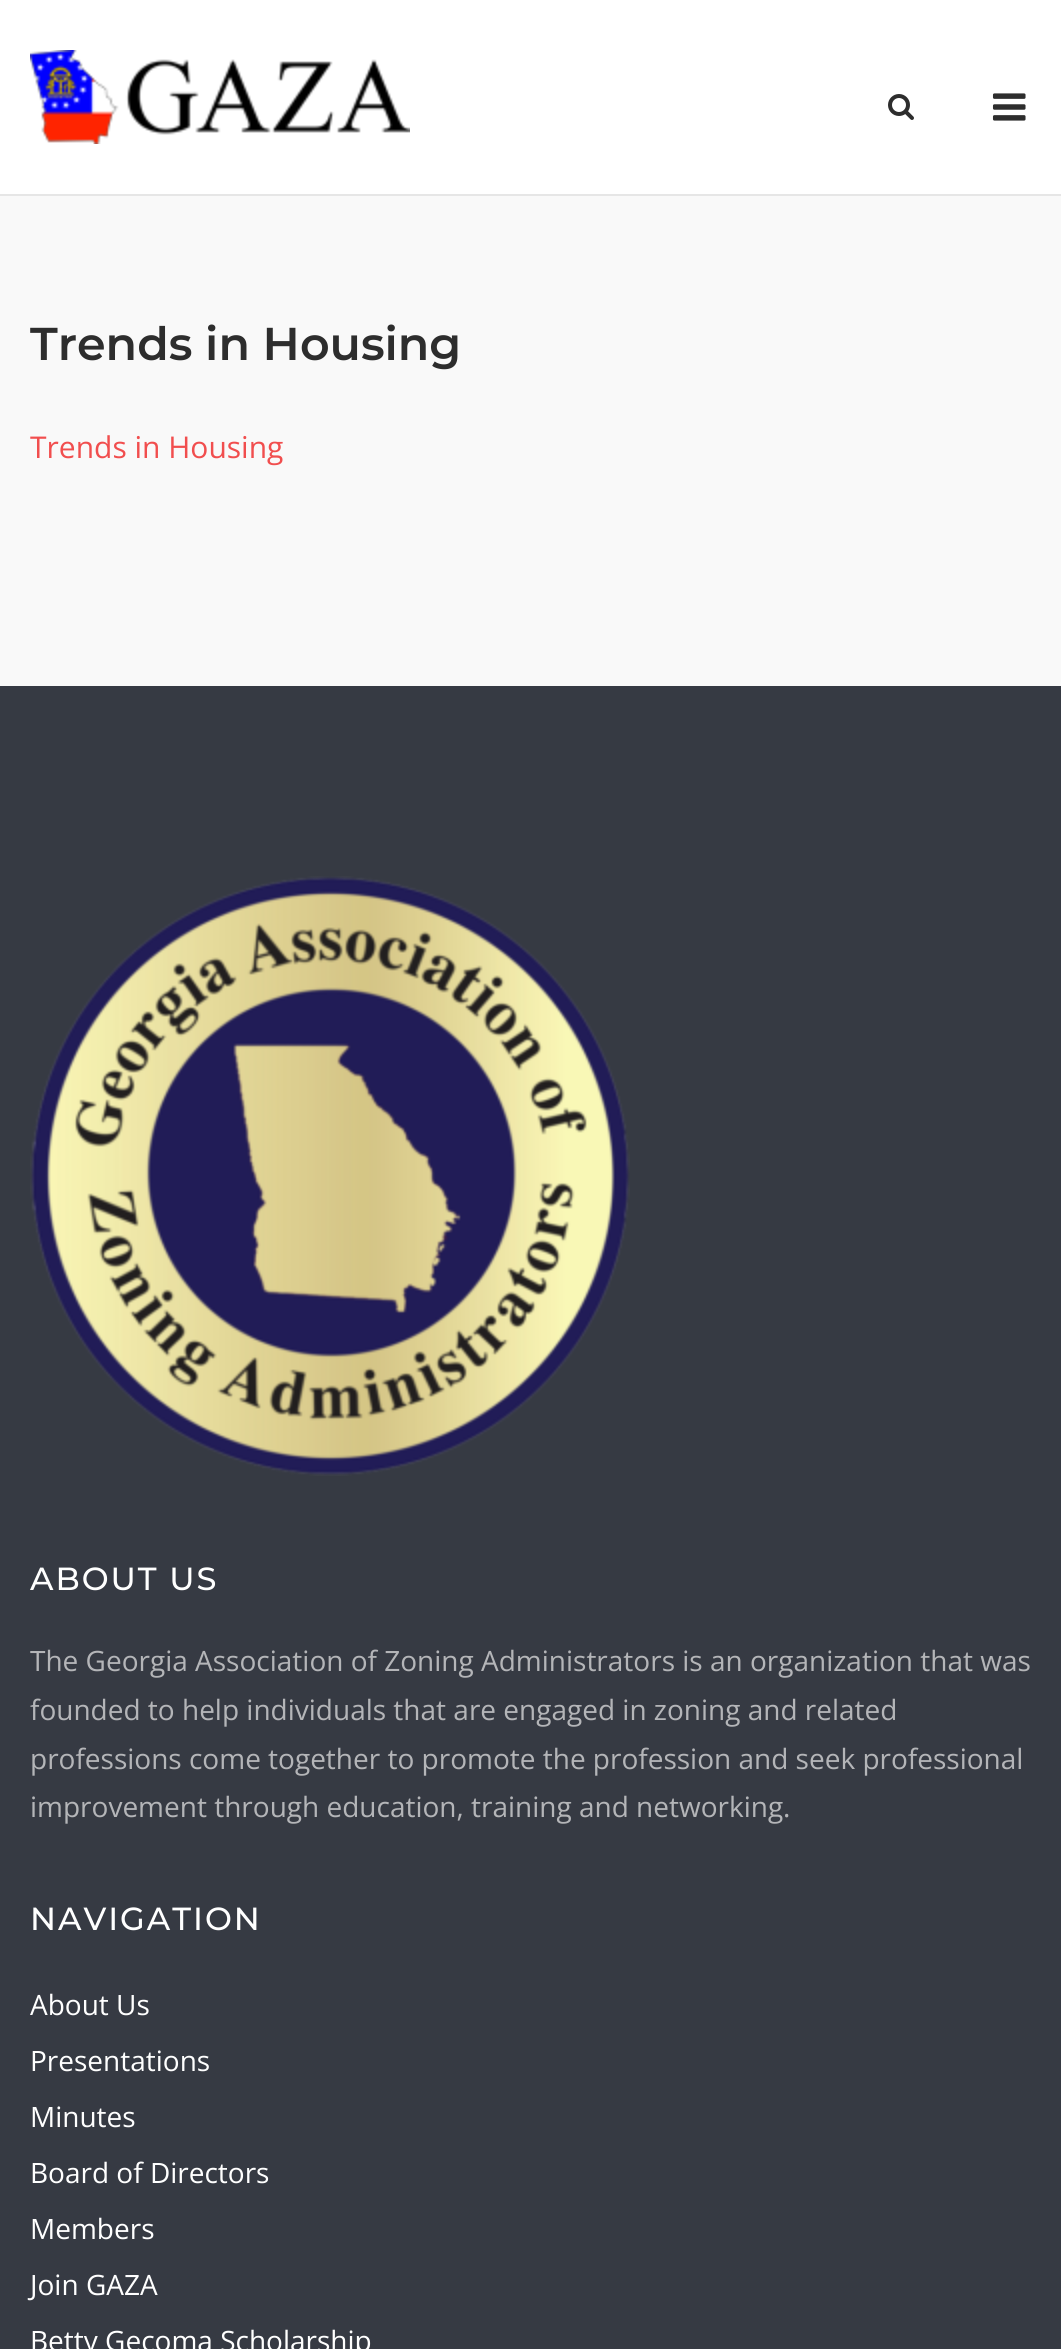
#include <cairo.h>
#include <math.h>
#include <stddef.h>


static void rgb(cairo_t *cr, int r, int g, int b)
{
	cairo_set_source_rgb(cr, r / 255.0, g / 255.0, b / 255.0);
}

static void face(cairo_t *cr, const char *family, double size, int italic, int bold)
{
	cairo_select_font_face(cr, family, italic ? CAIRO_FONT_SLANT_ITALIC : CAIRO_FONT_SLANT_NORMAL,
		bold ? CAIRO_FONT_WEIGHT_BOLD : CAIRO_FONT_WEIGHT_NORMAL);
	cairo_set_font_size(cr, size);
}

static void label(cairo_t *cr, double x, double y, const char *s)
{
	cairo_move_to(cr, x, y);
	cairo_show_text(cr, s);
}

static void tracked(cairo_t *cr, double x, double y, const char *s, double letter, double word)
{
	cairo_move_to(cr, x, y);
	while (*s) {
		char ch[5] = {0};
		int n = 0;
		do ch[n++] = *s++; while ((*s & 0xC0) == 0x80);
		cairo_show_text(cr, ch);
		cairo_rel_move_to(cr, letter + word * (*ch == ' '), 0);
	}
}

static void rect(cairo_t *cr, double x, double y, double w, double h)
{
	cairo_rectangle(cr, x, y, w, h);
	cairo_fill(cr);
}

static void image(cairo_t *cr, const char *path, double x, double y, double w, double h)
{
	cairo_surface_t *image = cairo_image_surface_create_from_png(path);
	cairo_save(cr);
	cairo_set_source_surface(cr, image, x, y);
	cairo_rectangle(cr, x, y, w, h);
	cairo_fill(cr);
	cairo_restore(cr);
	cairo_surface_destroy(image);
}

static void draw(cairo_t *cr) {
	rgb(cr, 249, 249, 249);
	cairo_paint(cr);
	rgb(cr, 255, 255, 255);
	rect(cr, 0, 0, 1061, 194);
	rgb(cr, 230, 230, 230);
	rect(cr, 0, 194, 1061, 2);
	image(cr, "image0.png", 30, 50, 380, 94);
	image(cr, "image1.png", 888, 94, 26, 26);
	image(cr, "image2.png", 992, 93, 34, 28);
	face(cr, "Montserrat SemiBold", 46, 0, 0);
	rgb(cr, 45, 45, 45);
	label(cr, 30, 360, "Trends in Housing");
	face(cr, "Open Sans", 30, 0, 0);
	rgb(cr, 241, 78, 78);
	label(cr, 30, 458, "Trends in Housing");
	rgb(cr, 54, 58, 67);
	rect(cr, 0, 686, 1061, 1663);
	image(cr, "image3.png", 30, 876, 600, 600);
	face(cr, "Montserrat Medium", 32, 0, 0);
	rgb(cr, 255, 255, 255);
	tracked(cr, 30, 1590, "ABOUT US", 2, 0);
	face(cr, "Open Sans", 28, 0, 0);
	rgb(cr, 180, 181, 184);
	label(cr, 30, 1671, "The Georgia Association of Zoning Administrators is an organization that was");
	label(cr, 30, 1720, "founded to help individuals that are engaged in zoning and related");
	label(cr, 30, 1769, "professions come together to promote the profession and seek professional");
	label(cr, 30, 1817, "improvement through education, training and networking.");
	face(cr, "Montserrat Medium", 32, 0, 0);
	rgb(cr, 255, 255, 255);
	tracked(cr, 30, 1930, "NAVIGATION", 2, 0);
	face(cr, "Open Sans", 28, 0, 0);
	label(cr, 30, 2015, "About Us");
	label(cr, 30, 2071, "Presentations");
	label(cr, 30, 2127, "Minutes");
	label(cr, 30, 2183, "Board of Directors");
	label(cr, 30, 2239, "Members");
	label(cr, 30, 2295, "Join GAZA");
	label(cr, 30, 2351, "Betty Gecoma Scholarship");
}

int main(void) {
	cairo_surface_t *surface = cairo_image_surface_create(CAIRO_FORMAT_RGB24, 1061, 2349);
	cairo_t *cr = cairo_create(surface);
	cairo_font_options_t *options = cairo_font_options_create();
	cairo_font_options_set_hint_metrics(options, CAIRO_HINT_METRICS_OFF);
	cairo_font_options_set_hint_style(options, CAIRO_HINT_STYLE_NONE);
	cairo_set_font_options(cr, options);
	cairo_set_miter_limit(cr, 4);
	draw(cr);
	cairo_surface_write_to_png(surface, "render.png");
	cairo_font_options_destroy(options);
	cairo_destroy(cr);
	cairo_surface_destroy(surface);
	return 0;
}
